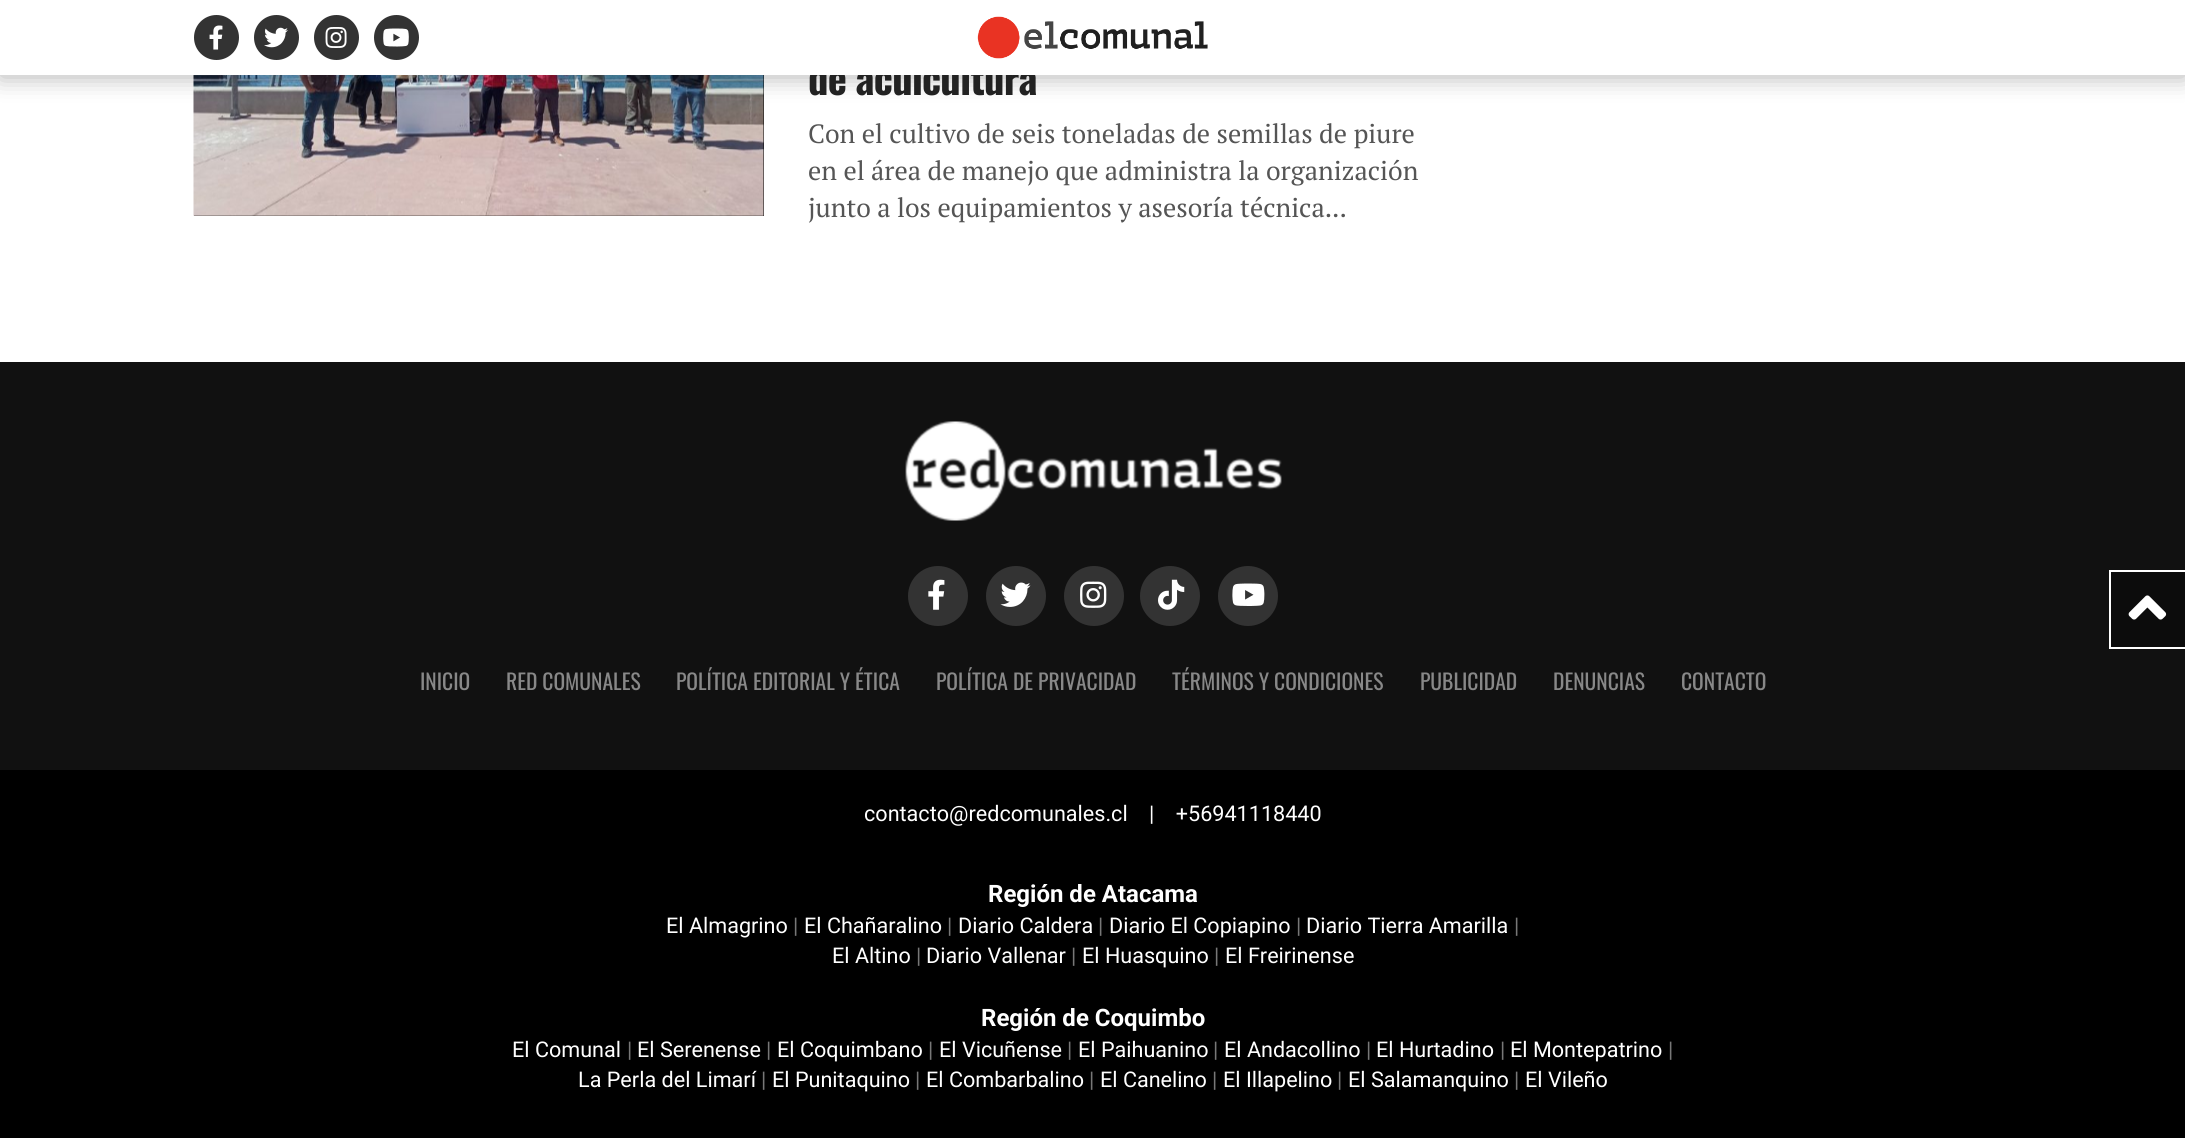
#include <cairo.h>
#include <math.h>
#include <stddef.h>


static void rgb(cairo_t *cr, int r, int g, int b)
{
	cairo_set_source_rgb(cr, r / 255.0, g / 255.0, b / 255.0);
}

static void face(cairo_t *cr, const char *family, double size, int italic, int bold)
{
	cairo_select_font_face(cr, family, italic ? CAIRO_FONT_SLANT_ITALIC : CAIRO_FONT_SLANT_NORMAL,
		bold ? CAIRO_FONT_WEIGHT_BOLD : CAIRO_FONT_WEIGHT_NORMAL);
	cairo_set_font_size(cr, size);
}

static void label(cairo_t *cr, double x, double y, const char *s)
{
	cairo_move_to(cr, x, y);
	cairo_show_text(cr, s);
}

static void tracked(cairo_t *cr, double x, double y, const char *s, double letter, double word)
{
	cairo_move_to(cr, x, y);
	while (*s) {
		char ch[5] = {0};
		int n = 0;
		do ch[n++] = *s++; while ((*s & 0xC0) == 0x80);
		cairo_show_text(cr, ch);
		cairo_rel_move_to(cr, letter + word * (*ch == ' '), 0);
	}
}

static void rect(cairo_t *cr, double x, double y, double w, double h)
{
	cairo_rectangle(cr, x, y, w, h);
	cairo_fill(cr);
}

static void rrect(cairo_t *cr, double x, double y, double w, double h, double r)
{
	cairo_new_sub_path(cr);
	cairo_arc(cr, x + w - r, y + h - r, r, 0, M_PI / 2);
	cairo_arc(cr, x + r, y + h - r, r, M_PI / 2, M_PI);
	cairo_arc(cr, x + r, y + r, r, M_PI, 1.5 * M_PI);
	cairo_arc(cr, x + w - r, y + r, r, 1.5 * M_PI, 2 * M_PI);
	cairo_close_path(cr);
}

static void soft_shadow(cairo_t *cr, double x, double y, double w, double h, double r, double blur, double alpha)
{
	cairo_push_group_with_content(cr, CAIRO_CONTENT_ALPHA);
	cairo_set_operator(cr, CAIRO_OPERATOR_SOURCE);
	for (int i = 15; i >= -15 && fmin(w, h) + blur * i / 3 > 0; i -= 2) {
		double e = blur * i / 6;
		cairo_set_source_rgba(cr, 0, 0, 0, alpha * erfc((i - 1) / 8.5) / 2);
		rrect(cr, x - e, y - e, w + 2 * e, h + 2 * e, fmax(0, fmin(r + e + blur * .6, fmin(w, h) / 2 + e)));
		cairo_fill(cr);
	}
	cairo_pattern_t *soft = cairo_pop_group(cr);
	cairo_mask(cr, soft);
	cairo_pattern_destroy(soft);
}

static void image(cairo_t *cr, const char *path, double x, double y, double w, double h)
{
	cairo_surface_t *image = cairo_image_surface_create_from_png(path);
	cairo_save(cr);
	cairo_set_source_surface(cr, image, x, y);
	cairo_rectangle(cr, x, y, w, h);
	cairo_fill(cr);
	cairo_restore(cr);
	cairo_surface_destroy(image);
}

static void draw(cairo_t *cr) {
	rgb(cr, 255, 255, 255);
	cairo_paint(cr);
	rgb(cr, 0, 0, 0);
	rect(cr, 194, 75, 570, 141);
	image(cr, "image5.png", 193, 75, 571, 141);
	rgb(cr, 0, 0, 0);
	soft_shadow(cr, 0, 2, 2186, 75, 0, 12, 0.3);
	face(cr, "Oswald", 40.75, 0, 1);
	rgb(cr, 34, 34, 34);
	tracked(cr, 808, 95, "de acuicultura", -0.75, 0);
	rgb(cr, 255, 255, 255);
	rect(cr, 0, 0, 2185, 75);
	rgb(cr, 51, 51, 51);
	cairo_new_path(cr);
	cairo_arc(cr, 216.5, 37.5, 22.5, 0, 2 * M_PI);
	cairo_fill(cr);
	image(cr, "image0.png", 209, 25, 14, 25);
	cairo_arc(cr, 276.5, 37.5, 22.5, 0, 2 * M_PI);
	cairo_fill(cr);
	image(cr, "image1.png", 264, 27, 24, 21);
	cairo_arc(cr, 336.5, 37.5, 22.5, 0, 2 * M_PI);
	cairo_fill(cr);
	image(cr, "image2.png", 325, 27, 22, 21);
	cairo_arc(cr, 396.5, 37.5, 22.5, 0, 2 * M_PI);
	cairo_fill(cr);
	image(cr, "image3.png", 383, 28, 26, 19);
	image(cr, "image4.png", 977, 16, 231, 43);
	face(cr, "PT Serif", 26.4, 0, 0);
	rgb(cr, 85, 85, 85);
	label(cr, 808, 143, "Con el cultivo de seis toneladas de semillas de piure");
	label(cr, 808, 180, "en el área de manejo que administra la organización");
	label(cr, 808, 217, "junto a los equipamientos y asesoría técnica...");
	rgb(cr, 17, 17, 17);
	rect(cr, 0, 362, 2185, 408);
	image(cr, "image6.png", 905, 421, 377, 100);
	rgb(cr, 51, 51, 51);
	cairo_arc(cr, 938, 596, 30, 0, 2 * M_PI);
	cairo_fill(cr);
	image(cr, "image7.png", 928, 579, 17, 31);
	cairo_arc(cr, 1016, 596, 30, 0, 2 * M_PI);
	cairo_fill(cr);
	image(cr, "image8.png", 1000, 582, 31, 25);
	cairo_arc(cr, 1094, 596, 30, 0, 2 * M_PI);
	cairo_fill(cr);
	image(cr, "image9.png", 1080, 581, 27, 27);
	cairo_arc(cr, 1170, 596, 30, 0, 2 * M_PI);
	cairo_fill(cr);
	image(cr, "image10.png", 1158, 579, 27, 31);
	cairo_arc(cr, 1248, 596, 30, 0, 2 * M_PI);
	cairo_fill(cr);
	image(cr, "image11.png", 1232, 583, 33, 23);
	face(cr, "Oswald", 21.6, 0, 0);
	rgb(cr, 136, 136, 136);
	label(cr, 420, 690, "INICIO");
	label(cr, 506, 690, "RED COMUNALES");
	label(cr, 676, 690, "POLÍTICA EDITORIAL Y ÉTICA");
	label(cr, 936, 690, "POLÍTICA DE PRIVACIDAD");
	label(cr, 1172, 690, "TÉRMINOS Y CONDICIONES");
	label(cr, 1420, 690, "PUBLICIDAD");
	label(cr, 1553, 690, "DENUNCIAS");
	label(cr, 1681, 690, "CONTACTO");
	rgb(cr, 0, 0, 0);
	rect(cr, 0, 770, 2185, 368);
	face(cr, "Roboto", 21.6, 0, 0);
	rgb(cr, 255, 255, 255);
	label(cr, 864, 821, "contacto@redcomunales.cl    |    +56941118440");
	face(cr, "Roboto", 24, 0, 1);
	label(cr, 988, 902, "Región de Atacama");
	face(cr, "Roboto", 21.6, 0, 0);
	label(cr, 666, 933, "El Almagrino");
	rgb(cr, 119, 119, 119);
	label(cr, 793, 933, "|");
	rgb(cr, 255, 255, 255);
	label(cr, 804, 933, "El Chañaralino");
	rgb(cr, 119, 119, 119);
	label(cr, 947, 933, "|");
	rgb(cr, 255, 255, 255);
	label(cr, 958, 933, "Diario Caldera");
	rgb(cr, 119, 119, 119);
	label(cr, 1098, 933, "|");
	rgb(cr, 255, 255, 255);
	label(cr, 1109, 933, "Diario El Copiapino");
	rgb(cr, 119, 119, 119);
	label(cr, 1296, 933, "|");
	rgb(cr, 255, 255, 255);
	label(cr, 1306, 933, "Diario Tierra Amarilla");
	rgb(cr, 119, 119, 119);
	label(cr, 1514, 933, "|");
	rgb(cr, 255, 255, 255);
	label(cr, 832, 963, "El Altino");
	rgb(cr, 119, 119, 119);
	label(cr, 916, 963, "|");
	rgb(cr, 255, 255, 255);
	label(cr, 926, 963, "Diario Vallenar");
	rgb(cr, 119, 119, 119);
	label(cr, 1071, 963, "|");
	rgb(cr, 255, 255, 255);
	label(cr, 1082, 963, "El Huasquino");
	rgb(cr, 119, 119, 119);
	label(cr, 1214, 963, "|");
	rgb(cr, 255, 255, 255);
	label(cr, 1225, 963, "El Freirinense");
	face(cr, "Roboto", 24, 0, 1);
	label(cr, 981, 1026, "Región de Coquimbo");
	face(cr, "Roboto", 21.6, 0, 0);
	label(cr, 512, 1057, "El Comunal");
	rgb(cr, 119, 119, 119);
	label(cr, 627, 1057, "|");
	rgb(cr, 255, 255, 255);
	label(cr, 637, 1057, "El Serenense");
	rgb(cr, 119, 119, 119);
	label(cr, 766, 1057, "|");
	rgb(cr, 255, 255, 255);
	label(cr, 777, 1057, "El Coquimbano");
	rgb(cr, 119, 119, 119);
	label(cr, 928, 1057, "|");
	rgb(cr, 255, 255, 255);
	label(cr, 939, 1057, "El Vicuñense");
	rgb(cr, 119, 119, 119);
	label(cr, 1067, 1057, "|");
	rgb(cr, 255, 255, 255);
	label(cr, 1078, 1057, "El Paihuanino");
	rgb(cr, 119, 119, 119);
	label(cr, 1213, 1057, "|");
	rgb(cr, 255, 255, 255);
	label(cr, 1224, 1057, "El Andacollino");
	rgb(cr, 119, 119, 119);
	label(cr, 1366, 1057, "|");
	rgb(cr, 255, 255, 255);
	label(cr, 1376, 1057, "El Hurtadino");
	rgb(cr, 119, 119, 119);
	label(cr, 1500, 1057, "|");
	rgb(cr, 255, 255, 255);
	label(cr, 1510, 1057, "El Montepatrino");
	rgb(cr, 119, 119, 119);
	label(cr, 1668, 1057, "|");
	rgb(cr, 255, 255, 255);
	label(cr, 578, 1087, "La Perla del Limarí");
	rgb(cr, 119, 119, 119);
	label(cr, 761, 1087, "|");
	rgb(cr, 255, 255, 255);
	label(cr, 772, 1087, "El Punitaquino");
	rgb(cr, 119, 119, 119);
	label(cr, 915, 1087, "|");
	rgb(cr, 255, 255, 255);
	label(cr, 926, 1087, "El Combarbalino");
	rgb(cr, 119, 119, 119);
	label(cr, 1089, 1087, "|");
	rgb(cr, 255, 255, 255);
	label(cr, 1100, 1087, "El Canelino");
	rgb(cr, 119, 119, 119);
	label(cr, 1212, 1087, "|");
	rgb(cr, 255, 255, 255);
	label(cr, 1223, 1087, "El Illapelino");
	rgb(cr, 119, 119, 119);
	label(cr, 1337, 1087, "|");
	rgb(cr, 255, 255, 255);
	label(cr, 1348, 1087, "El Salamanquino");
	rgb(cr, 119, 119, 119);
	label(cr, 1514, 1087, "|");
	rgb(cr, 255, 255, 255);
	label(cr, 1525, 1087, "El Vileño");
	rgb(cr, 12, 12, 12);
	rect(cr, 2111, 572, 74, 75);
	rgb(cr, 255, 255, 255);
	rect(cr, 2109, 570, 76, 2);
	rect(cr, 2109, 647, 76, 2);
	rect(cr, 2109, 570, 2, 78);
	image(cr, "image12.png", 2128, 595, 39, 25);
}

int main(void) {
	cairo_surface_t *surface = cairo_image_surface_create(CAIRO_FORMAT_RGB24, 2185, 1138);
	cairo_t *cr = cairo_create(surface);
	cairo_font_options_t *options = cairo_font_options_create();
	cairo_font_options_set_hint_metrics(options, CAIRO_HINT_METRICS_OFF);
	cairo_font_options_set_hint_style(options, CAIRO_HINT_STYLE_NONE);
	cairo_set_font_options(cr, options);
	cairo_set_miter_limit(cr, 4);
	draw(cr);
	cairo_surface_write_to_png(surface, "render.png");
	cairo_font_options_destroy(options);
	cairo_destroy(cr);
	cairo_surface_destroy(surface);
	return 0;
}
